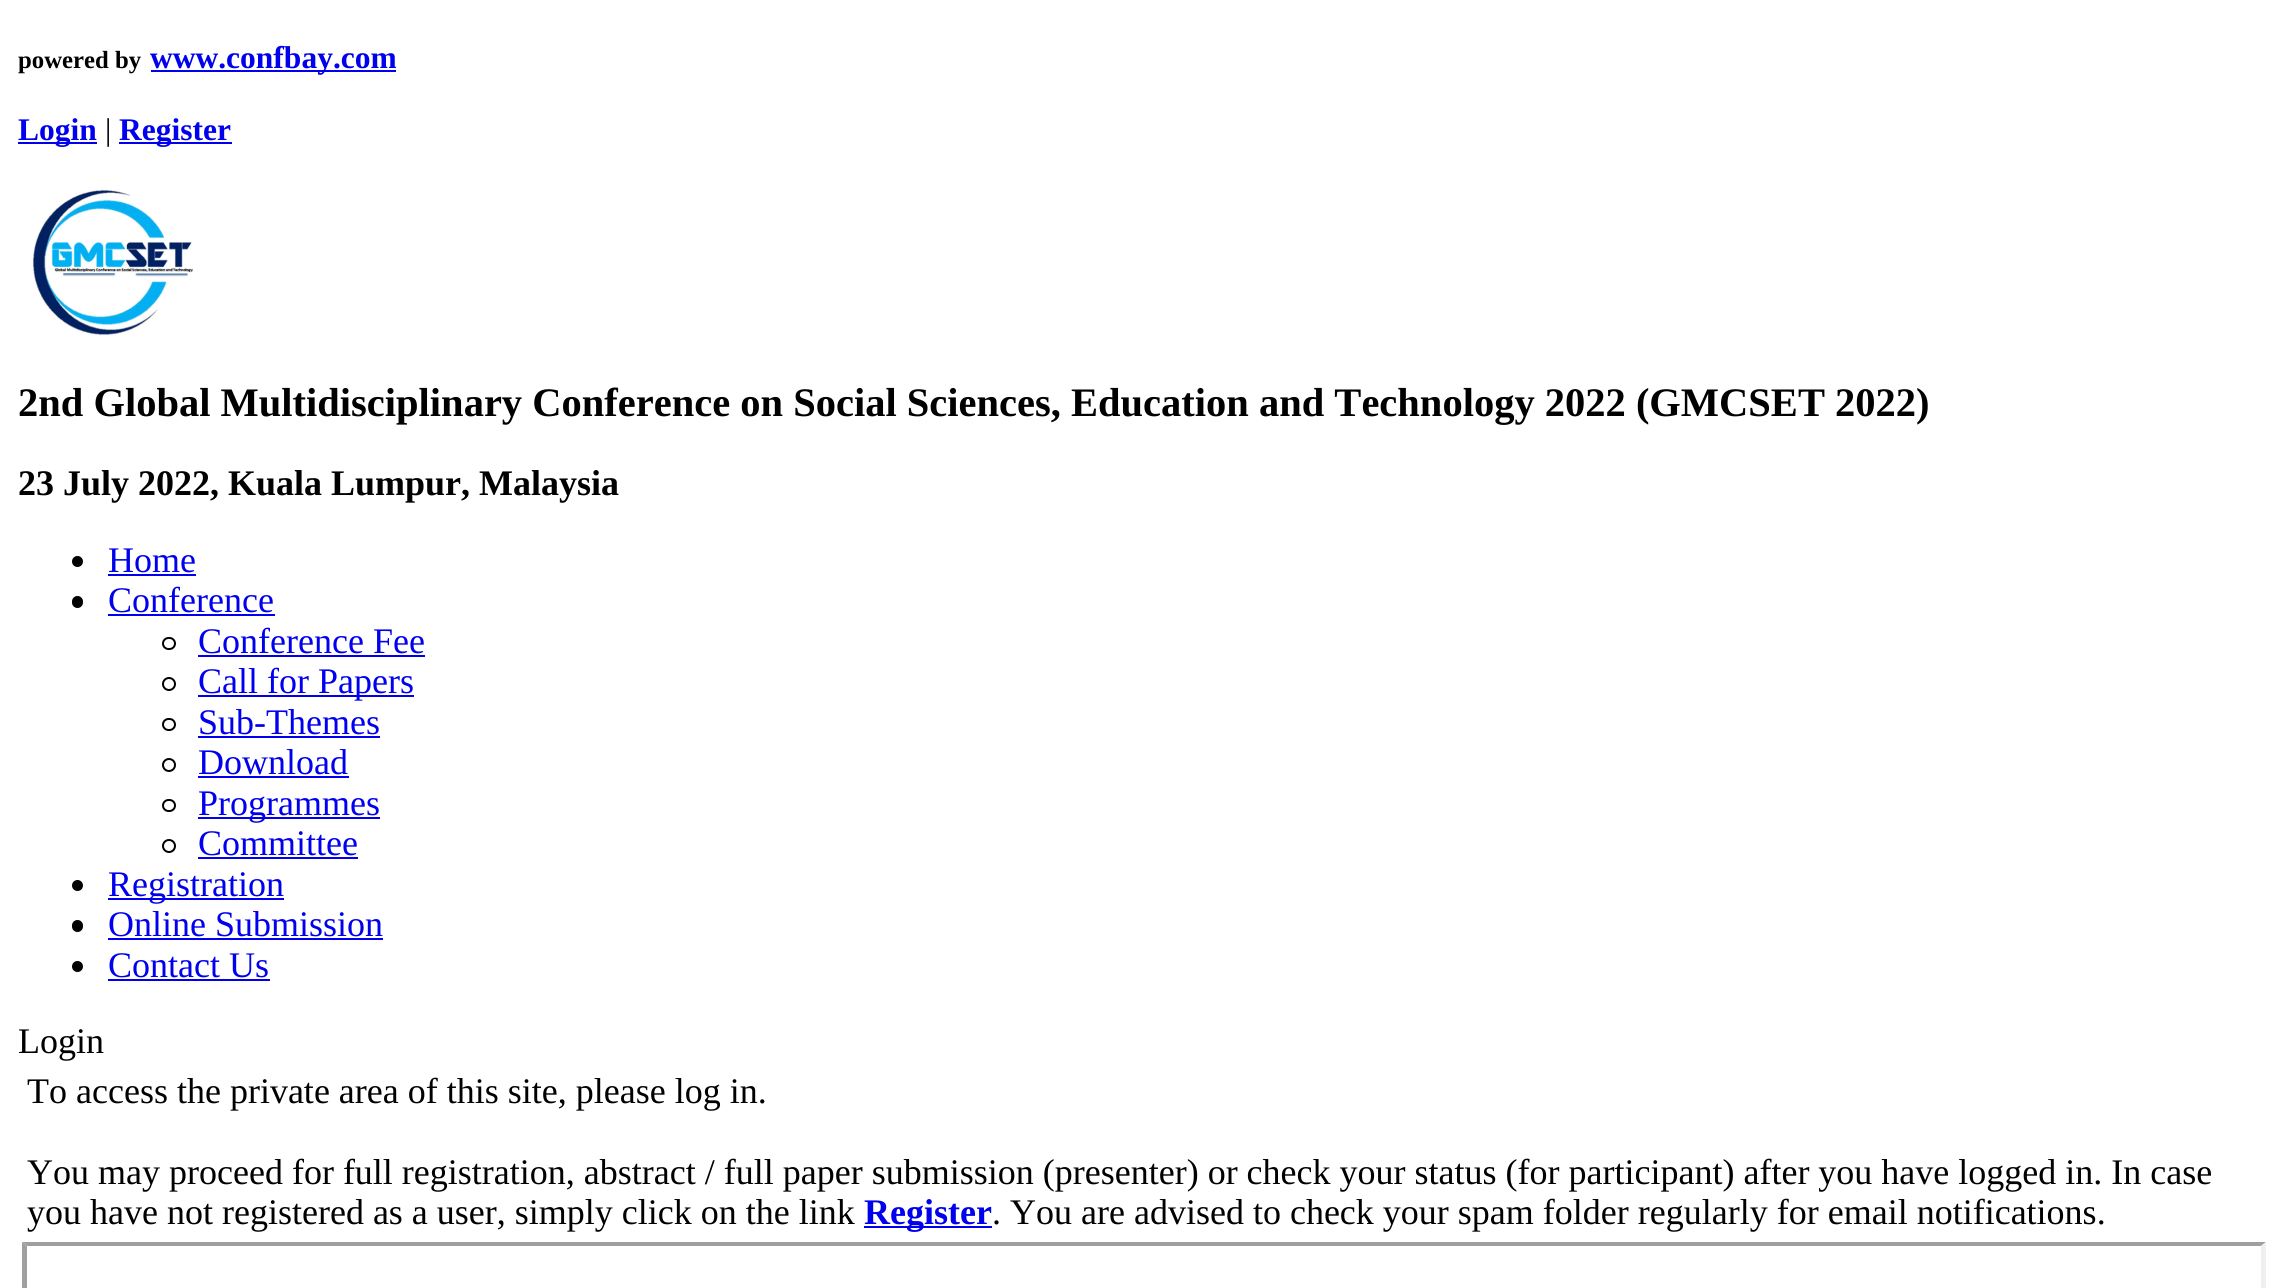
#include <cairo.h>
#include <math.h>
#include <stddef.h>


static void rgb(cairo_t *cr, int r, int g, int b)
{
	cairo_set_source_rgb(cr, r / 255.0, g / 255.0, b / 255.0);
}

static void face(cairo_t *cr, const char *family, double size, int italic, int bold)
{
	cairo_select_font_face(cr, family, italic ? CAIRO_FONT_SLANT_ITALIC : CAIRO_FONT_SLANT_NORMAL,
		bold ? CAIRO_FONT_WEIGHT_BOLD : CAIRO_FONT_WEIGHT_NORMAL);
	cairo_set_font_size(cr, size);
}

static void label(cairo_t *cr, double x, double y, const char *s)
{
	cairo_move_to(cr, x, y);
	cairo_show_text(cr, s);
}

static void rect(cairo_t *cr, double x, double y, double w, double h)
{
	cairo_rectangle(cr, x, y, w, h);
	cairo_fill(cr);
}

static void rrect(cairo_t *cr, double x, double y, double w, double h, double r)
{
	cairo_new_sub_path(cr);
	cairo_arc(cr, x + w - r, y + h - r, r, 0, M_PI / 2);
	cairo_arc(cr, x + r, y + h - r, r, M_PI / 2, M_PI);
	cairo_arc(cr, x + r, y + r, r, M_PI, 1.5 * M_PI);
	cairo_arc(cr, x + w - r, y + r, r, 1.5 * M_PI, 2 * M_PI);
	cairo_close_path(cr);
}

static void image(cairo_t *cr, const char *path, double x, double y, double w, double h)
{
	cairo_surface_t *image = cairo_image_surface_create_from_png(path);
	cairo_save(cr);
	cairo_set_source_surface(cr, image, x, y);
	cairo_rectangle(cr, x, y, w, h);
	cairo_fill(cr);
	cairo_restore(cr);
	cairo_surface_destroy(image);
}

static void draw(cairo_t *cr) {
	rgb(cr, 255, 255, 255);
	cairo_paint(cr);
	face(cr, "Liberation Serif", 24.75, 0, 1);
	rgb(cr, 0, 0, 0);
	label(cr, 18, 68, "powered by");
	rgb(cr, 0, 0, 238);
	rect(cr, 151, 70, 245, 2);
	face(cr, "Liberation Serif", 31.5, 0, 1);
	label(cr, 150, 68, "www.confbay.com");
	rect(cr, 18, 142, 79, 2);
	label(cr, 18, 140, "Login");
	face(cr, "Liberation Serif", 31.5, 0, 0);
	rgb(cr, 0, 0, 0);
	label(cr, 105, 140, "|");
	rgb(cr, 0, 0, 238);
	rect(cr, 119, 142, 113, 2);
	face(cr, "Liberation Serif", 31.5, 0, 1);
	label(cr, 119, 140, "Register");
	image(cr, "image0.png", 30, 188, 164, 148);
	face(cr, "Liberation Serif", 40.5, 0, 1);
	rgb(cr, 0, 0, 0);
	label(cr, 18, 416, "2nd Global Multidisciplinary Conference on Social Sciences, Education and Technology 2022 (GMCSET 2022)");
	face(cr, "Liberation Serif", 36, 0, 1);
	label(cr, 18, 495, "23 July 2022, Kuala Lumpur, Malaysia");
	cairo_new_path(cr);
	cairo_arc(cr, 77.5, 561.5, 5.5, 0, 2 * M_PI);
	cairo_fill(cr);
	face(cr, "Liberation Serif", 36, 0, 0);
	rgb(cr, 0, 0, 238);
	label(cr, 108, 572, "Home");
	rect(cr, 108, 574, 88, 2);
	rgb(cr, 0, 0, 0);
	rrect(cr, 72, 596, 11, 12, 5.5);
	cairo_fill(cr);
	rgb(cr, 0, 0, 238);
	label(cr, 108, 612, "Conference");
	rect(cr, 108, 614, 167, 2);
	rrect(cr, 163, 638, 12, 11, 5.5);
	rgb(cr, 0, 0, 0);
	cairo_stroke(cr);
	rgb(cr, 0, 0, 238);
	label(cr, 198, 653, "Conference Fee");
	rect(cr, 198, 655, 227, 2);
	cairo_new_path(cr);
	cairo_arc(cr, 169, 684, 6, 0, 2 * M_PI);
	rgb(cr, 0, 0, 0);
	cairo_stroke(cr);
	rgb(cr, 0, 0, 238);
	rect(cr, 198, 695, 216, 2);
	label(cr, 198, 693, "Call for Papers");
	rrect(cr, 163, 719, 12, 11, 5.5);
	rgb(cr, 0, 0, 0);
	cairo_stroke(cr);
	rgb(cr, 0, 0, 238);
	label(cr, 198, 734, "Sub-Themes");
	rect(cr, 198, 736, 182, 2);
	cairo_new_path(cr);
	cairo_arc(cr, 169, 765, 6, 0, 2 * M_PI);
	rgb(cr, 0, 0, 0);
	cairo_stroke(cr);
	rgb(cr, 0, 0, 238);
	label(cr, 198, 774, "Download");
	rect(cr, 198, 776, 151, 2);
	rrect(cr, 163, 800, 12, 11, 5.5);
	rgb(cr, 0, 0, 0);
	cairo_stroke(cr);
	rgb(cr, 0, 0, 238);
	rect(cr, 198, 817, 182, 2);
	label(cr, 198, 815, "Programmes");
	cairo_new_path(cr);
	cairo_arc(cr, 169, 846, 6, 0, 2 * M_PI);
	rgb(cr, 0, 0, 0);
	cairo_stroke(cr);
	rgb(cr, 0, 0, 238);
	label(cr, 198, 855, "Committee");
	rect(cr, 198, 857, 160, 2);
	rgb(cr, 0, 0, 0);
	cairo_new_path(cr);
	cairo_arc(cr, 77.5, 885.5, 5.5, 0, 2 * M_PI);
	cairo_fill(cr);
	rgb(cr, 0, 0, 238);
	rect(cr, 108, 898, 176, 2);
	label(cr, 108, 896, "Registration");
	rgb(cr, 0, 0, 0);
	rrect(cr, 72, 920, 11, 12, 5.5);
	cairo_fill(cr);
	rgb(cr, 0, 0, 238);
	label(cr, 108, 936, "Online Submission");
	rect(cr, 108, 938, 275, 2);
	rgb(cr, 0, 0, 0);
	cairo_new_path(cr);
	cairo_arc(cr, 77.5, 966.5, 5.5, 0, 2 * M_PI);
	cairo_fill(cr);
	rgb(cr, 0, 0, 238);
	label(cr, 108, 977, "Contact Us");
	rect(cr, 108, 979, 162, 2);
	rgb(cr, 0, 0, 0);
	label(cr, 18, 1053, "Login");
	label(cr, 27, 1103, "To access the private area of this site, please log in.");
	label(cr, 27, 1184, "You may proceed for full registration, abstract / full paper submission (presenter) or check your status (for participant) after you have logged in. In case");
	label(cr, 27, 1224, "you have not registered as a user, simply click on the link");
	rgb(cr, 0, 0, 238);
	rect(cr, 864, 1226, 128, 2);
	face(cr, "Liberation Serif", 36, 0, 1);
	label(cr, 864, 1224, "Register");
	face(cr, "Liberation Serif", 36, 0, 0);
	rgb(cr, 0, 0, 0);
	label(cr, 992, 1224, ". You are advised to check your spam folder regularly for email notifications.");
	rgb(cr, 159, 159, 159);
	cairo_new_path(cr);
	cairo_move_to(cr, 22, 1242);
	cairo_line_to(cr, 2266, 1242);
	cairo_line_to(cr, 2261, 1246);
	cairo_line_to(cr, 27, 1246);
	cairo_close_path(cr);
	cairo_fill(cr);
	rgb(cr, 239, 239, 239);
	cairo_new_path(cr);
	cairo_move_to(cr, 2266, 1242);
	cairo_line_to(cr, 2266, 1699);
	cairo_line_to(cr, 2261, 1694);
	cairo_line_to(cr, 2261, 1246);
	cairo_close_path(cr);
	cairo_fill(cr);
	rgb(cr, 159, 159, 159);
	cairo_new_path(cr);
	cairo_move_to(cr, 22, 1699);
	cairo_line_to(cr, 22, 1242);
	cairo_line_to(cr, 27, 1246);
	cairo_line_to(cr, 27, 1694);
	cairo_close_path(cr);
	cairo_fill(cr);
}

int main(void) {
	cairo_surface_t *surface = cairo_image_surface_create(CAIRO_FORMAT_RGB24, 2288, 1288);
	cairo_t *cr = cairo_create(surface);
	cairo_font_options_t *options = cairo_font_options_create();
	cairo_font_options_set_hint_metrics(options, CAIRO_HINT_METRICS_OFF);
	cairo_font_options_set_hint_style(options, CAIRO_HINT_STYLE_NONE);
	cairo_set_font_options(cr, options);
	cairo_set_miter_limit(cr, 4);
	draw(cr);
	cairo_surface_write_to_png(surface, "render.png");
	cairo_font_options_destroy(options);
	cairo_destroy(cr);
	cairo_surface_destroy(surface);
	return 0;
}
